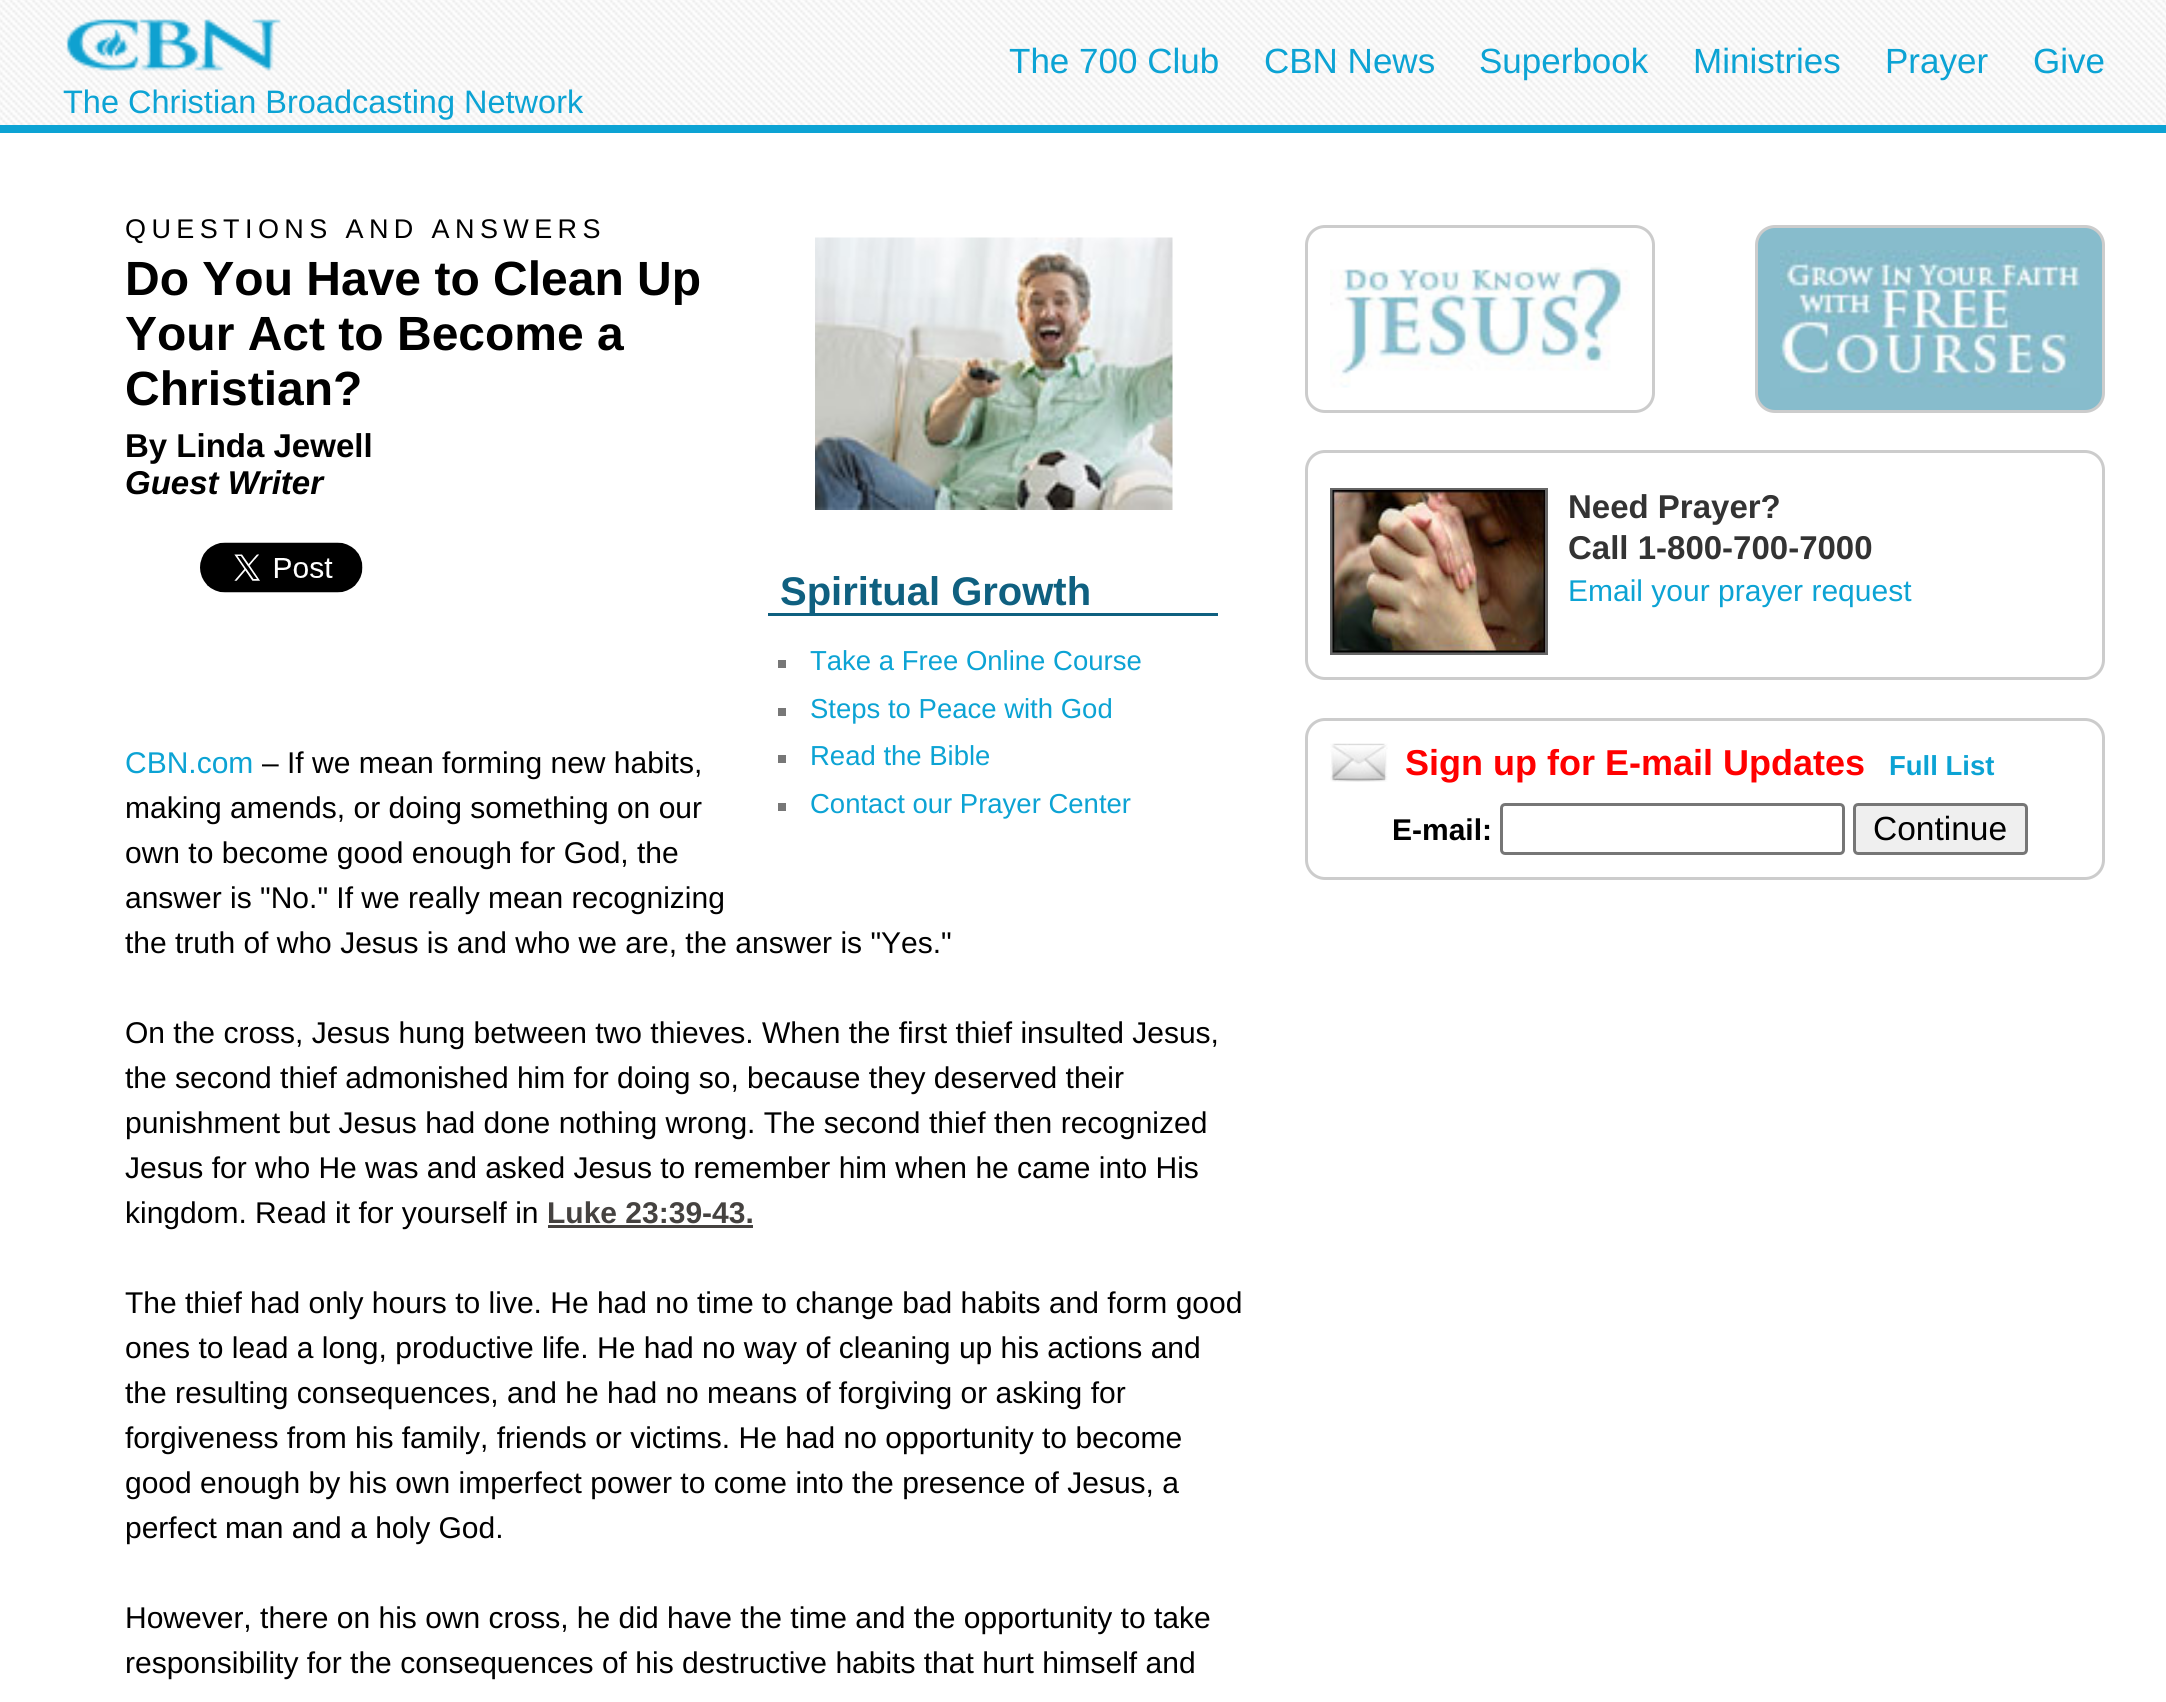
#include <cairo.h>
#include <math.h>
#include <stddef.h>


static void rgb(cairo_t *cr, int r, int g, int b)
{
	cairo_set_source_rgb(cr, r / 255.0, g / 255.0, b / 255.0);
}

static void face(cairo_t *cr, const char *family, double size, int italic, int bold)
{
	cairo_select_font_face(cr, family, italic ? CAIRO_FONT_SLANT_ITALIC : CAIRO_FONT_SLANT_NORMAL,
		bold ? CAIRO_FONT_WEIGHT_BOLD : CAIRO_FONT_WEIGHT_NORMAL);
	cairo_set_font_size(cr, size);
}

static void label(cairo_t *cr, double x, double y, const char *s)
{
	cairo_move_to(cr, x, y);
	cairo_show_text(cr, s);
}

static void tracked(cairo_t *cr, double x, double y, const char *s, double letter, double word)
{
	cairo_move_to(cr, x, y);
	while (*s) {
		char ch[5] = {0};
		int n = 0;
		do ch[n++] = *s++; while ((*s & 0xC0) == 0x80);
		cairo_show_text(cr, ch);
		cairo_rel_move_to(cr, letter + word * (*ch == ' '), 0);
	}
}

static void rect(cairo_t *cr, double x, double y, double w, double h)
{
	cairo_rectangle(cr, x, y, w, h);
	cairo_fill(cr);
}

static void rrect(cairo_t *cr, double x, double y, double w, double h, double r)
{
	cairo_new_sub_path(cr);
	cairo_arc(cr, x + w - r, y + h - r, r, 0, M_PI / 2);
	cairo_arc(cr, x + r, y + h - r, r, M_PI / 2, M_PI);
	cairo_arc(cr, x + r, y + r, r, M_PI, 1.5 * M_PI);
	cairo_arc(cr, x + w - r, y + r, r, 1.5 * M_PI, 2 * M_PI);
	cairo_close_path(cr);
}

static void image(cairo_t *cr, const char *path, double x, double y, double w, double h)
{
	cairo_surface_t *image = cairo_image_surface_create_from_png(path);
	cairo_save(cr);
	cairo_set_source_surface(cr, image, x, y);
	cairo_rectangle(cr, x, y, w, h);
	cairo_fill(cr);
	cairo_restore(cr);
	cairo_surface_destroy(image);
}

static void draw(cairo_t *cr) {
	rgb(cr, 255, 255, 255);
	cairo_paint(cr);
	image(cr, "image0.png", 0, 0, 2166, 125);
	rgb(cr, 12, 163, 212);
	rect(cr, 0, 125, 2166, 8);
	face(cr, "Liberation Sans", 35, 0, 0);
	label(cr, 1009, 73, "The 700 Club");
	label(cr, 1264, 73, "CBN News");
	label(cr, 1479, 73, "Superbook");
	label(cr, 1693, 73, "Ministries");
	label(cr, 1885, 73, "Prayer");
	label(cr, 2033, 73, "Give");
	image(cr, "image1.png", 66, 19, 215, 52);
	face(cr, "Liberation Sans", 32.5, 0, 0);
	label(cr, 63, 113, "The Christian Broadcasting Network");
	face(cr, "Liberation Sans", 27, 0, 0);
	rgb(cr, 0, 0, 0);
	tracked(cr, 125, 238, "QUESTIONS AND ANSWERS", 5.4, 0);
	face(cr, "Liberation Sans", 48, 0, 1);
	label(cr, 125, 295, "Do You Have to Clean Up");
	label(cr, 125, 350, "Your Act to Become a");
	label(cr, 125, 405, "Christian?");
	face(cr, "Liberation Sans", 33, 0, 1);
	label(cr, 125, 457, "By Linda Jewell");
	face(cr, "Liberation Sans", 33, 1, 1);
	label(cr, 125, 494, "Guest Writer");
	image(cr, "image2.png", 200, 542, 163, 51);
	image(cr, "image3.png", 815, 237, 358, 273);
	rgb(cr, 15, 96, 128);
	rect(cr, 768, 613, 450, 3);
	face(cr, "Liberation Sans", 40, 0, 1);
	label(cr, 780, 605, "Spiritual Growth");
	rgb(cr, 119, 119, 119);
	rect(cr, 778, 660, 8, 8);
	face(cr, "Liberation Sans", 27.5, 0, 0);
	rgb(cr, 12, 163, 212);
	label(cr, 810, 670, "Take a Free Online Course");
	rgb(cr, 119, 119, 119);
	rect(cr, 778, 708, 8, 8);
	rgb(cr, 12, 163, 212);
	label(cr, 810, 718, "Steps to Peace with God");
	rgb(cr, 119, 119, 119);
	rect(cr, 778, 755, 8, 8);
	rgb(cr, 12, 163, 212);
	label(cr, 810, 765, "Read the Bible");
	rgb(cr, 119, 119, 119);
	rect(cr, 778, 803, 8, 8);
	rgb(cr, 12, 163, 212);
	label(cr, 810, 813, "Contact our Prayer Center");
	face(cr, "Liberation Sans", 30, 0, 0);
	label(cr, 125, 773, "CBN.com");
	rgb(cr, 0, 0, 0);
	label(cr, 262, 773, "– If we mean forming new habits,");
	label(cr, 125, 818, "making amends, or doing something on our");
	label(cr, 125, 863, "own to become good enough for God, the");
	label(cr, 125, 908, "answer is \"No.\" If we really mean recognizing");
	label(cr, 125, 953, "the truth of who Jesus is and who we are, the answer is \"Yes.\"");
	label(cr, 125, 1043, "On the cross, Jesus hung between two thieves. When the first thief insulted Jesus,");
	label(cr, 125, 1088, "the second thief admonished him for doing so, because they deserved their");
	label(cr, 125, 1133, "punishment but Jesus had done nothing wrong. The second thief then recognized");
	label(cr, 125, 1178, "Jesus for who He was and asked Jesus to remember him when he came into His");
	label(cr, 125, 1223, "kingdom. Read it for yourself in");
	face(cr, "Liberation Sans", 30, 0, 1);
	rgb(cr, 69, 66, 64);
	label(cr, 547, 1223, "Luke 23:39-43.");
	rect(cr, 548, 1225, 205, 3);
	face(cr, "Liberation Sans", 30, 0, 0);
	rgb(cr, 0, 0, 0);
	label(cr, 125, 1313, "The thief had only hours to live. He had no time to change bad habits and form good");
	label(cr, 125, 1358, "ones to lead a long, productive life. He had no way of cleaning up his actions and");
	label(cr, 125, 1403, "the resulting consequences, and he had no means of forgiving or asking for");
	label(cr, 125, 1448, "forgiveness from his family, friends or victims. He had no opportunity to become");
	label(cr, 125, 1493, "good enough by his own imperfect power to come into the presence of Jesus, a");
	label(cr, 125, 1538, "perfect man and a holy God.");
	label(cr, 125, 1628, "However, there on his own cross, he did have the time and the opportunity to take");
	label(cr, 125, 1673, "responsibility for the consequences of his destructive habits that hurt himself and");
	rrect(cr, 1306.5, 226.5, 347, 185, 18.5);
	rgb(cr, 204, 204, 204);
	cairo_set_line_width(cr, 3);
	cairo_stroke(cr);
	image(cr, "image4.png", 1330, 263, 300, 125);
	rgb(cr, 135, 188, 204);
	rrect(cr, 1756.5, 226.5, 347, 185, 18.5);
	cairo_fill_preserve(cr);
	rgb(cr, 204, 204, 204);
	cairo_stroke(cr);
	image(cr, "image5.png", 1780, 250, 300, 138);
	rrect(cr, 1306.5, 451.5, 797, 227, 18.5);
	cairo_stroke(cr);
	cairo_rectangle(cr, 1331.5, 489.5, 215, 164);
	rgb(cr, 102, 102, 102);
	cairo_stroke(cr);
	image(cr, "image6.png", 1332, 490, 213, 163);
	face(cr, "Liberation Sans", 33, 0, 1);
	rgb(cr, 51, 51, 51);
	label(cr, 1568, 518, "Need Prayer?");
	label(cr, 1568, 559, "Call 1-800-700-7000");
	face(cr, "Liberation Sans", 30, 0, 0);
	rgb(cr, 12, 163, 212);
	label(cr, 1568, 601, "Email your prayer request");
	rrect(cr, 1306.5, 719.5, 797, 159, 18.5);
	rgb(cr, 204, 204, 204);
	cairo_stroke(cr);
	image(cr, "image7.png", 1330, 743, 58, 39);
	face(cr, "Liberation Sans", 36, 0, 1);
	rgb(cr, 255, 0, 0);
	label(cr, 1405, 775, "Sign up for E-mail Updates");
	face(cr, "Liberation Sans", 27.5, 0, 1);
	rgb(cr, 12, 163, 212);
	label(cr, 1889, 775, "Full List");
	face(cr, "Liberation Sans", 30, 0, 1);
	rgb(cr, 0, 0, 0);
	label(cr, 1392, 840, "E-mail:");
	rrect(cr, 1501.5, 804.5, 342, 49, 3.5);
	rgb(cr, 118, 118, 118);
	cairo_stroke(cr);
	rgb(cr, 239, 239, 239);
	rrect(cr, 1854.5, 804.5, 172, 49, 3.5);
	cairo_fill_preserve(cr);
	rgb(cr, 118, 118, 118);
	cairo_stroke(cr);
	face(cr, "Liberation Sans", 33.5, 0, 0);
	rgb(cr, 0, 0, 0);
	label(cr, 1873, 840, "Continue");
}

int main(void) {
	cairo_surface_t *surface = cairo_image_surface_create(CAIRO_FORMAT_RGB24, 2166, 1702);
	cairo_t *cr = cairo_create(surface);
	cairo_font_options_t *options = cairo_font_options_create();
	cairo_font_options_set_hint_metrics(options, CAIRO_HINT_METRICS_OFF);
	cairo_font_options_set_hint_style(options, CAIRO_HINT_STYLE_NONE);
	cairo_set_font_options(cr, options);
	cairo_set_miter_limit(cr, 4);
	draw(cr);
	cairo_surface_write_to_png(surface, "render.png");
	cairo_font_options_destroy(options);
	cairo_destroy(cr);
	cairo_surface_destroy(surface);
	return 0;
}
